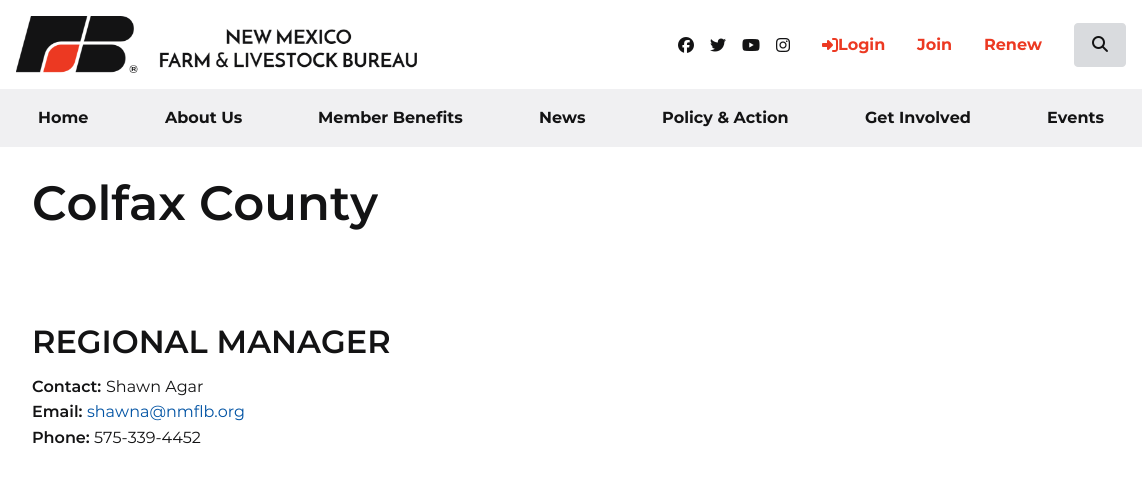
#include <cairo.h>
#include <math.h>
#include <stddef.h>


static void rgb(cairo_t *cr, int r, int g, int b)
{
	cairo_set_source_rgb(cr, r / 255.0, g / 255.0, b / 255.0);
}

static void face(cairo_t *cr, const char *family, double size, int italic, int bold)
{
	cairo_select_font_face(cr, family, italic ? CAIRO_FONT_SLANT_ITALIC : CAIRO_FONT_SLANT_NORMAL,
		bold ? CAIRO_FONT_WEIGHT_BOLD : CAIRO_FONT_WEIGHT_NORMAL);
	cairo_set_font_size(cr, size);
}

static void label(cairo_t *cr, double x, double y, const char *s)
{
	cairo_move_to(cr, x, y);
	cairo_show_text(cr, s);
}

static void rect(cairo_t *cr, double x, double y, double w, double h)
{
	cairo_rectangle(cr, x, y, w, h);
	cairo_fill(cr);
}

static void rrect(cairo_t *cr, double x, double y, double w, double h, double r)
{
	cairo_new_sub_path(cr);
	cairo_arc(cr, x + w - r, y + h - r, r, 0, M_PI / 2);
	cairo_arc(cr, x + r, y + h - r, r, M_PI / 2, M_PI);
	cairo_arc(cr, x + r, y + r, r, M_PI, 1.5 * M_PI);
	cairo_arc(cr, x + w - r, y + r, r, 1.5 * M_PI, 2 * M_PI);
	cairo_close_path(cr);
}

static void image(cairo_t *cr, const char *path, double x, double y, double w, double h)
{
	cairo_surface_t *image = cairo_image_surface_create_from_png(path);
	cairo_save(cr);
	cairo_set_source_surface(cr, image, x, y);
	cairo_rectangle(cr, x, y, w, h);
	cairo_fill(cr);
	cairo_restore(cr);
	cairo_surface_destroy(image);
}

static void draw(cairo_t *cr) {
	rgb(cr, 255, 255, 255);
	cairo_paint(cr);
	image(cr, "image0.png", 16, 16, 401, 57);
	image(cr, "image1.png", 678, 37, 16, 16);
	image(cr, "image2.png", 710, 38, 16, 14);
	image(cr, "image3.png", 742, 39, 18, 12);
	image(cr, "image4.png", 776, 38, 14, 14);
	image(cr, "image5.png", 822, 38, 16, 14);
	face(cr, "Montserrat", 16, 0, 1);
	rgb(cr, 236, 57, 34);
	label(cr, 838, 50, "Login");
	label(cr, 917, 50, "Join");
	label(cr, 984, 50, "Renew");
	rgb(cr, 217, 219, 222);
	rrect(cr, 1074, 23, 52, 44, 4);
	cairo_fill(cr);
	image(cr, "image6.png", 1092, 36, 16, 16);
	rgb(cr, 240, 240, 242);
	rect(cr, 0, 89, 1142, 58);
	rgb(cr, 19, 19, 20);
	label(cr, 38, 123, "Home");
	label(cr, 165, 123, "About Us");
	label(cr, 318, 123, "Member Benefits");
	label(cr, 539, 123, "News");
	label(cr, 662, 123, "Policy & Action");
	label(cr, 865, 123, "Get Involved");
	label(cr, 1047, 123, "Events");
	face(cr, "Montserrat SemiBold", 48, 0, 0);
	label(cr, 32, 220, "Colfax County");
	face(cr, "Montserrat SemiBold", 32, 0, 0);
	label(cr, 32, 353, "REGIONAL MANAGER");
	face(cr, "Montserrat SemiBold", 16, 0, 0);
	label(cr, 32, 392, "Contact:");
	face(cr, "Montserrat", 16, 0, 0);
	label(cr, 106, 392, "Shawn Agar");
	face(cr, "Montserrat SemiBold", 16, 0, 0);
	label(cr, 32, 417, "Email:");
	face(cr, "Montserrat", 16, 0, 0);
	rgb(cr, 0, 82, 163);
	label(cr, 87, 417, "shawna@nmflb.org");
	face(cr, "Montserrat SemiBold", 16, 0, 0);
	rgb(cr, 19, 19, 20);
	label(cr, 32, 443, "Phone:");
	face(cr, "Montserrat", 16, 0, 0);
	label(cr, 94, 443, "575-339-4452");
}

int main(void) {
	cairo_surface_t *surface = cairo_image_surface_create(CAIRO_FORMAT_RGB24, 1142, 492);
	cairo_t *cr = cairo_create(surface);
	cairo_font_options_t *options = cairo_font_options_create();
	cairo_font_options_set_hint_metrics(options, CAIRO_HINT_METRICS_OFF);
	cairo_font_options_set_hint_style(options, CAIRO_HINT_STYLE_NONE);
	cairo_set_font_options(cr, options);
	cairo_set_miter_limit(cr, 4);
	draw(cr);
	cairo_surface_write_to_png(surface, "render.png");
	cairo_font_options_destroy(options);
	cairo_destroy(cr);
	cairo_surface_destroy(surface);
	return 0;
}
